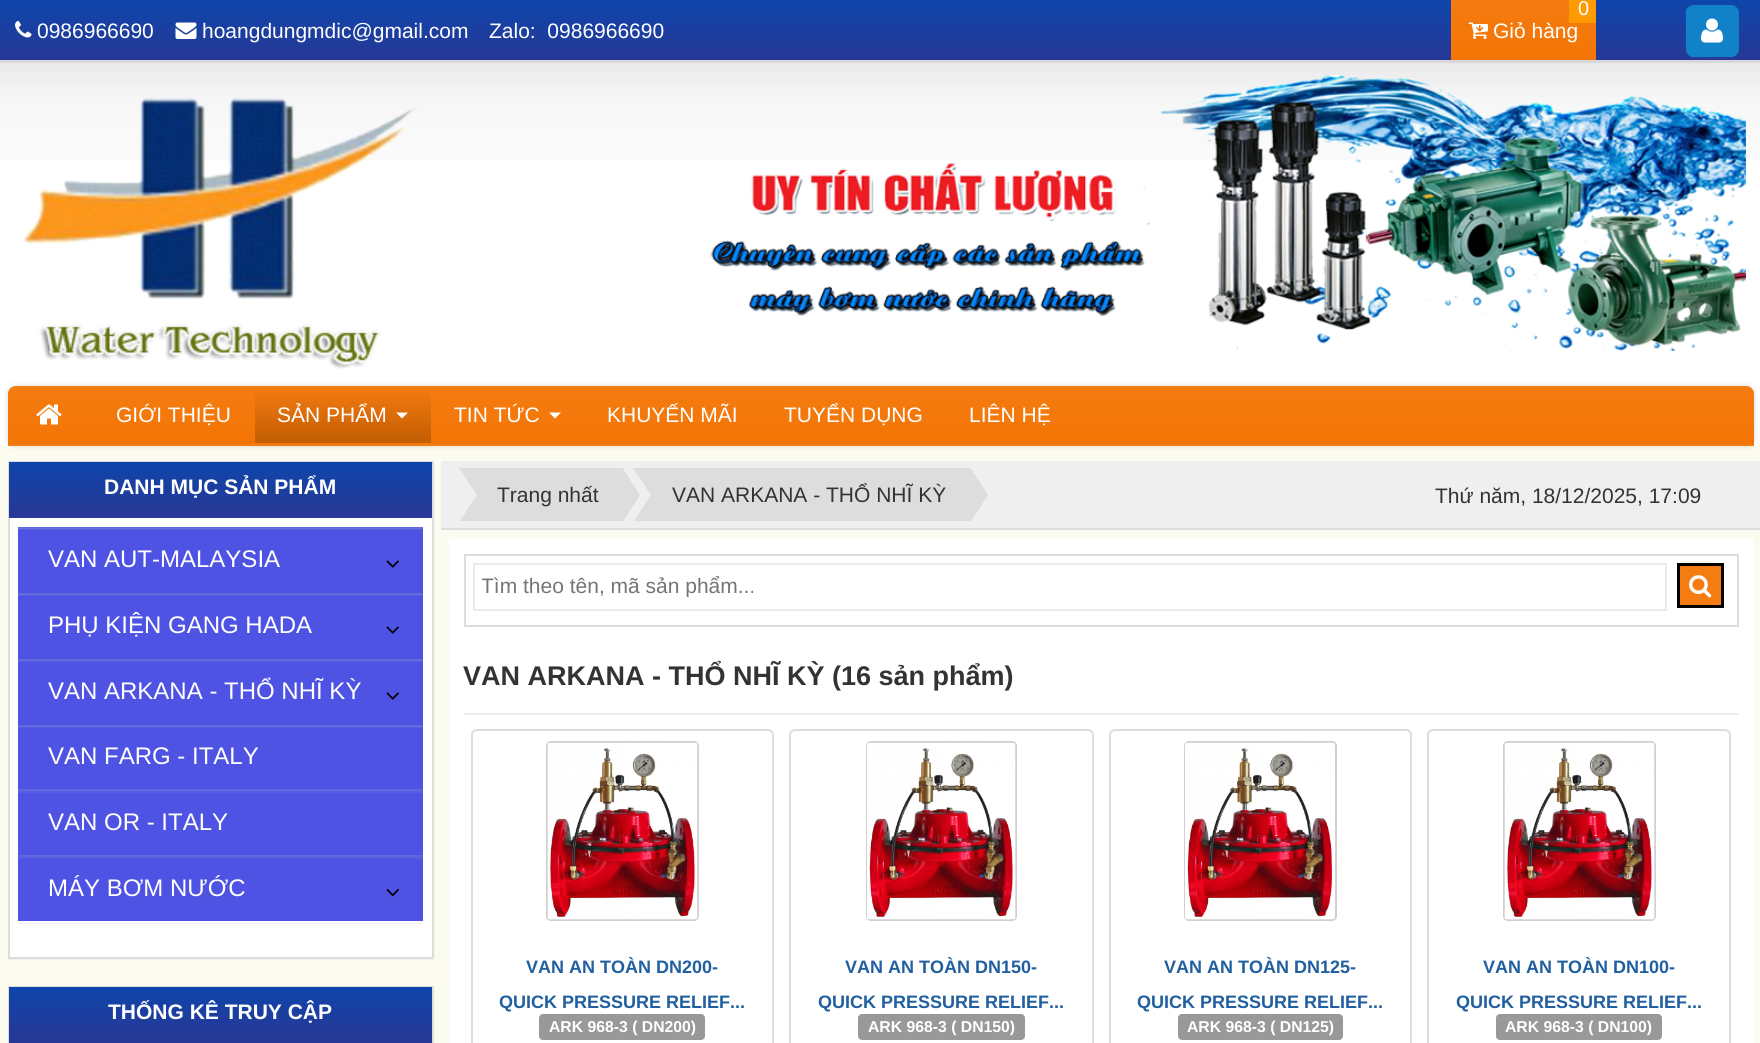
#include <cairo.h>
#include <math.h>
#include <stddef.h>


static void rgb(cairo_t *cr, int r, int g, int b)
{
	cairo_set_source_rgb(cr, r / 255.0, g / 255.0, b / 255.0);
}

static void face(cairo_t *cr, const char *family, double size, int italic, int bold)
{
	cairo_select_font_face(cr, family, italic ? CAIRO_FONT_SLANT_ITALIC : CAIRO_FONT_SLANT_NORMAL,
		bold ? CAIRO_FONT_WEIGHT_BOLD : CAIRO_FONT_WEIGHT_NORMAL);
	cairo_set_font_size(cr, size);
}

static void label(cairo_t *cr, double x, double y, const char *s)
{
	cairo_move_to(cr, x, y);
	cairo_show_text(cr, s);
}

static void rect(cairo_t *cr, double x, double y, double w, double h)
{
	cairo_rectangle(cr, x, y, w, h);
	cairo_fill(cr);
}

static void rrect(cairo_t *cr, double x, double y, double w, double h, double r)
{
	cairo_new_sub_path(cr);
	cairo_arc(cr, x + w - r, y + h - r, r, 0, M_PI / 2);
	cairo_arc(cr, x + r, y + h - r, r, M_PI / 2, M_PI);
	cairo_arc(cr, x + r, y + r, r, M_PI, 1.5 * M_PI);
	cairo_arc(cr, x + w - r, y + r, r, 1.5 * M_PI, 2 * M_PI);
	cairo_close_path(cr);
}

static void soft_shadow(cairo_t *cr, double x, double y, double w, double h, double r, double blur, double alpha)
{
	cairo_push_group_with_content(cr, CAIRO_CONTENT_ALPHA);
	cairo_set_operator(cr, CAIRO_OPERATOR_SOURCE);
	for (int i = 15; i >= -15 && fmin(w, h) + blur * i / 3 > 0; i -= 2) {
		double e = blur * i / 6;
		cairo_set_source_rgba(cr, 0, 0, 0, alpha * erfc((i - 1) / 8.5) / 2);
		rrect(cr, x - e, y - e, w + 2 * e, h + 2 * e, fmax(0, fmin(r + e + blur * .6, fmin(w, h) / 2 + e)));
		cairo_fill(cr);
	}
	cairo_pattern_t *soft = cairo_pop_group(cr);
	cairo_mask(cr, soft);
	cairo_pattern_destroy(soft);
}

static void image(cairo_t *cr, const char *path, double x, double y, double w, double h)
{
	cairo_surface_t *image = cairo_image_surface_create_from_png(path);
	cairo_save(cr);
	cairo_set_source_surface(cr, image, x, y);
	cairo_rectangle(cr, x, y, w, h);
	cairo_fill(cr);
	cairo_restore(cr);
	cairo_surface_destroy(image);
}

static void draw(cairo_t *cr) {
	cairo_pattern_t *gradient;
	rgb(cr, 251, 251, 239);
	cairo_paint(cr);
	gradient = cairo_pattern_create_linear(881, 0, 881, 60);
	cairo_pattern_add_color_stop_rgba(gradient, 0, 0.055, 0.271, 0.671, 1);
	cairo_pattern_add_color_stop_rgba(gradient, 1, 0.153, 0.22, 0.588, 1);
	cairo_set_source(cr, gradient);
	cairo_pattern_destroy(gradient);
	rect(cr, 0, 0, 1760, 60);
	image(cr, "image0.png", 15, 21, 17, 17);
	face(cr, "Liberation Sans", 21, 0, 0);
	rgb(cr, 255, 255, 255);
	label(cr, 37, 38, "0986966690");
	image(cr, "image1.png", 175, 22, 22, 17);
	label(cr, 202, 38, "hoangdungmdic@gmail.com");
	label(cr, 489, 38, "Zalo:  0986966690");
	gradient = cairo_pattern_create_linear(1523, 0, 1523, 60);
	cairo_pattern_add_color_stop_rgba(gradient, 0, 0.961, 0.486, 0.067, 1);
	cairo_pattern_add_color_stop_rgba(gradient, 1, 0.953, 0.459, 0.02, 1);
	cairo_set_source(cr, gradient);
	cairo_pattern_destroy(gradient);
	rect(cr, 1451, 0, 145, 60);
	rgb(cr, 255, 255, 255);
	label(cr, 1493, 38, "Giỏ hàng");
	rgb(cr, 254, 155, 0);
	rect(cr, 1569, 0, 27, 23);
	face(cr, "Liberation Sans", 20, 0, 0);
	rgb(cr, 255, 255, 255);
	label(cr, 1578, 15, "0");
	image(cr, "image2.png", 1468, 22, 20, 17);
	rgb(cr, 17, 130, 200);
	rrect(cr, 1686, 5, 53, 52, 8);
	cairo_fill(cr);
	cairo_new_path(cr);
	cairo_move_to(cr, 1735, 53.5);
	cairo_curve_to(cr, 1732.5, 56.5, 1728, 55.5, 1725, 55.5);
	cairo_line_to(cr, 1712, 55.5);
	cairo_curve_to(cr, 1684, 55.5, 1687.5, 59, 1687.5, 31);
	cairo_line_to(cr, 1687.5, 18);
	cairo_curve_to(cr, 1687.5, 15, 1686.5, 10.5, 1689.5, 8);
	cairo_set_line_width(cr, 3);
	cairo_stroke(cr);
	image(cr, "image3.png", 1701, 18, 22, 25);
	rgb(cr, 255, 255, 255);
	rect(cr, 0, 160, 1760, 286);
	image(cr, "image4.png", 0, 60, 1760, 100);
	image(cr, "image5.png", 22, 97, 395, 272);
	image(cr, "image6.png", 710, 75, 1036, 276);
	rgb(cr, 0, 0, 0);
	soft_shadow(cr, 8, 386, 1746, 60, 8, 3, 0.15);
	gradient = cairo_pattern_create_linear(881, 385, 881, 444);
	cairo_pattern_add_color_stop_rgba(gradient, 0, 0.961, 0.486, 0.067, 1);
	cairo_pattern_add_color_stop_rgba(gradient, 1, 0.953, 0.459, 0.02, 1);
	cairo_set_source(cr, gradient);
	cairo_pattern_destroy(gradient);
	cairo_new_path(cr);
	cairo_move_to(cr, 16, 386);
	cairo_line_to(cr, 1746, 386);
	cairo_curve_to(cr, 1750.5, 386, 1754, 389.5, 1754, 394);
	cairo_line_to(cr, 1754, 444);
	cairo_line_to(cr, 8, 444);
	cairo_line_to(cr, 8, 394);
	cairo_curve_to(cr, 8, 389.5, 11.5, 386, 16, 386);
	cairo_close_path(cr);
	cairo_fill(cr);
	rgb(cr, 245, 124, 17);
	rect(cr, 8, 444, 1746, 2);
	image(cr, "image7.png", 36, 404, 26, 21);
	face(cr, "Liberation Sans", 21, 0, 0);
	rgb(cr, 255, 255, 255);
	label(cr, 116, 422, "GIỚI THIỆU");
	gradient = cairo_pattern_create_linear(343, 386, 343, 443);
	cairo_pattern_add_color_stop_rgba(gradient, 0, 0, 0, 0, 0);
	cairo_pattern_add_color_stop_rgba(gradient, 1, 0, 0, 0, 0.2);
	cairo_set_source(cr, gradient);
	cairo_pattern_destroy(gradient);
	rect(cr, 255, 392, 176, 51);
	rgb(cr, 255, 255, 255);
	label(cr, 277, 422, "SẢN PHẨM");
	cairo_new_path(cr);
	cairo_move_to(cr, 396, 412.5);
	cairo_line_to(cr, 408, 412.5);
	cairo_line_to(cr, 402, 418.5);
	cairo_close_path(cr);
	cairo_fill(cr);
	label(cr, 454, 422, "TIN TỨC");
	cairo_new_path(cr);
	cairo_move_to(cr, 549, 412.5);
	cairo_line_to(cr, 561, 412.5);
	cairo_line_to(cr, 555, 418.5);
	cairo_close_path(cr);
	cairo_fill(cr);
	label(cr, 607, 422, "KHUYẾN MÃI");
	label(cr, 784, 422, "TUYỂN DỤNG");
	label(cr, 969, 422, "LIÊN HỆ");
	rgb(cr, 0, 0, 0);
	soft_shadow(cr, 8, 462, 426, 498, 0, 1, 0.05);
	rgb(cr, 255, 255, 255);
	rect(cr, 10, 518, 422, 439);
	cairo_rectangle(cr, 9, 462, 424, 496);
	rgb(cr, 221, 221, 221);
	cairo_set_line_width(cr, 2);
	cairo_stroke(cr);
	rgb(cr, 39, 56, 150);
	rect(cr, 9, 513, 423, 5);
	gradient = cairo_pattern_create_linear(221, 462, 221, 513);
	cairo_pattern_add_color_stop_rgba(gradient, 0, 0.055, 0.271, 0.671, 1);
	cairo_pattern_add_color_stop_rgba(gradient, 1, 0.153, 0.22, 0.588, 1);
	cairo_set_source(cr, gradient);
	cairo_pattern_destroy(gradient);
	rect(cr, 9, 462, 423, 51);
	face(cr, "Liberation Sans", 21, 0, 1);
	rgb(cr, 255, 255, 255);
	label(cr, 104, 494, "DANH MỤC SẢN PHẨM");
	rgb(cr, 0, 0, 0);
	soft_shadow(cr, 17, 527, 408, 397, 0, 1, 0.05);
	rgb(cr, 255, 255, 255);
	rect(cr, 17, 526, 408, 397);
	rgb(cr, 79, 83, 227);
	rect(cr, 18, 530, 405, 391);
	rgb(cr, 100, 103, 219);
	rect(cr, 18, 725, 405, 1);
	rect(cr, 18, 659, 405, 1);
	rect(cr, 18, 593, 405, 1);
	rect(cr, 18, 527, 405, 1);
	rgb(cr, 88, 92, 228);
	rect(cr, 18, 529, 405, 1);
	rgb(cr, 107, 111, 219);
	rect(cr, 18, 528, 405, 1);
	face(cr, "Liberation Sans", 24, 0, 0);
	rgb(cr, 255, 255, 255);
	label(cr, 48, 567, "VAN AUT-MALAYSIA");
	image(cr, "image8.png", 386, 560, 13, 8);
	rgb(cr, 88, 92, 228);
	rect(cr, 18, 595, 405, 1);
	rgb(cr, 107, 111, 219);
	rect(cr, 18, 594, 405, 1);
	rgb(cr, 255, 255, 255);
	label(cr, 48, 633, "PHỤ KIỆN GANG HADA");
	image(cr, "image8.png", 386, 626, 13, 8);
	rgb(cr, 88, 92, 228);
	rect(cr, 18, 661, 405, 1);
	rgb(cr, 107, 111, 219);
	rect(cr, 18, 660, 405, 1);
	rgb(cr, 255, 255, 255);
	label(cr, 48, 699, "VAN ARKANA - THỔ NHĨ KỲ");
	image(cr, "image8.png", 386, 692, 13, 8);
	rgb(cr, 88, 92, 228);
	rect(cr, 18, 727, 405, 1);
	rgb(cr, 107, 111, 219);
	rect(cr, 18, 726, 405, 1);
	rgb(cr, 255, 255, 255);
	label(cr, 48, 764, "VAN FARG - ITALY");
	rgb(cr, 88, 92, 228);
	rect(cr, 18, 791, 405, 2);
	rgb(cr, 100, 103, 219);
	rect(cr, 18, 789, 405, 2);
	rgb(cr, 255, 255, 255);
	label(cr, 48, 830, "VAN OR - ITALY");
	rgb(cr, 88, 92, 228);
	rect(cr, 18, 857, 405, 2);
	rgb(cr, 100, 103, 219);
	rect(cr, 18, 855, 405, 2);
	rgb(cr, 255, 255, 255);
	label(cr, 48, 896, "MÁY BƠM NƯỚC");
	image(cr, "image9.png", 386, 889, 13, 8);
	cairo_rectangle(cr, 9, 987, 424, 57);
	rgb(cr, 221, 221, 221);
	cairo_stroke(cr);
	rgb(cr, 39, 56, 150);
	rect(cr, 9, 1038, 423, 5);
	gradient = cairo_pattern_create_linear(221, 987, 221, 1038);
	cairo_pattern_add_color_stop_rgba(gradient, 0, 0.055, 0.271, 0.671, 1);
	cairo_pattern_add_color_stop_rgba(gradient, 1, 0.153, 0.22, 0.588, 1);
	cairo_set_source(cr, gradient);
	cairo_pattern_destroy(gradient);
	rect(cr, 9, 987, 423, 51);
	face(cr, "Liberation Sans", 21, 0, 1);
	rgb(cr, 255, 255, 255);
	label(cr, 108, 1019, "THỐNG KÊ TRUY CẬP");
	rgb(cr, 221, 221, 221);
	rect(cr, 441, 528, 1319, 2);
	rgb(cr, 239, 239, 239);
	rect(cr, 441, 461, 1319, 67);
	rgb(cr, 221, 221, 221);
	rect(cr, 477, 468, 143, 53);
	cairo_save(cr);
	cairo_rectangle(cr, 456, 468, 963, 53);
	cairo_clip(cr);
	cairo_new_path(cr);
	cairo_move_to(cr, 456, 463.5);
	cairo_line_to(cr, 477, 463.5);
	cairo_line_to(cr, 477, 495);
	cairo_close_path(cr);
	cairo_move_to(cr, 477, 526.5);
	cairo_line_to(cr, 456, 526.5);
	cairo_line_to(cr, 477, 495);
	cairo_close_path(cr);
	cairo_fill(cr);
	cairo_restore(cr);
	face(cr, "Liberation Sans", 21, 0, 0);
	rgb(cr, 51, 51, 51);
	label(cr, 497, 502, "Trang nhất");
	cairo_save(cr);
	cairo_rectangle(cr, 456, 468, 963, 53);
	cairo_clip(cr);
	rgb(cr, 221, 221, 221);
	cairo_new_path(cr);
	cairo_move_to(cr, 620, 526);
	cairo_line_to(cr, 620, 464);
	cairo_line_to(cr, 640, 495);
	cairo_close_path(cr);
	cairo_fill(cr);
	cairo_restore(cr);
	rgb(cr, 221, 221, 221);
	rect(cr, 651, 468, 317, 53);
	cairo_save(cr);
	cairo_rectangle(cr, 456, 468, 963, 53);
	cairo_clip(cr);
	cairo_new_path(cr);
	cairo_move_to(cr, 630, 463.5);
	cairo_line_to(cr, 651, 463.5);
	cairo_line_to(cr, 651, 495);
	cairo_close_path(cr);
	cairo_move_to(cr, 651, 526.5);
	cairo_line_to(cr, 630, 526.5);
	cairo_line_to(cr, 651, 495);
	cairo_close_path(cr);
	cairo_fill(cr);
	cairo_restore(cr);
	rgb(cr, 51, 51, 51);
	label(cr, 672, 502, "VAN ARKANA - THỔ NHĨ KỲ");
	cairo_save(cr);
	cairo_rectangle(cr, 456, 468, 963, 53);
	cairo_clip(cr);
	rgb(cr, 221, 221, 221);
	cairo_new_path(cr);
	cairo_move_to(cr, 968, 526);
	cairo_line_to(cr, 968, 464);
	cairo_line_to(cr, 988, 495);
	cairo_close_path(cr);
	cairo_fill(cr);
	cairo_restore(cr);
	label(cr, 1435, 503, "Thứ năm, 18/12/2025, 17:09");
	rgb(cr, 255, 255, 255);
	rect(cr, 449, 539, 1305, 504);
	cairo_rectangle(cr, 465, 555, 1273, 71);
	rgb(cr, 221, 221, 221);
	cairo_stroke(cr);
	cairo_rectangle(cr, 474, 564, 1192, 46);
	rgb(cr, 235, 235, 235);
	cairo_stroke(cr);
	cairo_save(cr);
	cairo_rectangle(cr, 482, 573, 1176, 24);
	cairo_clip(cr);
	rgb(cr, 117, 117, 117);
	label(cr, 481, 593, "Tìm theo tên, mã sản phẩm...");
	cairo_restore(cr);
	rgb(cr, 245, 124, 17);
	cairo_rectangle(cr, 1678.5, 564.5, 44, 42);
	cairo_fill_preserve(cr);
	rgb(cr, 0, 0, 0);
	cairo_set_line_width(cr, 3);
	cairo_stroke(cr);
	image(cr, "image10.png", 1689, 575, 23, 23);
	rgb(cr, 238, 238, 238);
	rect(cr, 464, 713, 1275, 2);
	face(cr, "Liberation Sans", 27, 0, 1);
	rgb(cr, 51, 51, 51);
	label(cr, 463, 685, "VAN ARKANA - THỔ NHĨ KỲ (16 sản phẩm)");
	rrect(cr, 472, 730, 301, 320, 5);
	rgb(cr, 221, 221, 221);
	cairo_set_line_width(cr, 2);
	cairo_stroke(cr);
	rgb(cr, 208, 208, 208);
	rrect(cr, 546, 741, 153, 180, 5);
	cairo_fill(cr);
	image(cr, "image11.png", 547, 742, 151, 178);
	face(cr, "Liberation Sans", 18, 0, 1);
	rgb(cr, 32, 95, 160);
	label(cr, 526, 973, "VAN AN TOÀN DN200-");
	label(cr, 499, 1008, "QUICK PRESSURE RELIEF...");
	rgb(cr, 153, 153, 153);
	rrect(cr, 539, 1014, 166, 26, 4);
	cairo_fill(cr);
	face(cr, "Liberation Sans", 15.75, 0, 1);
	rgb(cr, 255, 255, 255);
	label(cr, 549, 1032, "ARK 968-3 ( DN200)");
	rrect(cr, 790, 730, 303, 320, 5);
	rgb(cr, 221, 221, 221);
	cairo_stroke(cr);
	rgb(cr, 208, 208, 208);
	rrect(cr, 866, 741, 151, 180, 5);
	cairo_fill(cr);
	image(cr, "image12.png", 867, 742, 149, 178);
	face(cr, "Liberation Sans", 18, 0, 1);
	rgb(cr, 32, 95, 160);
	label(cr, 845, 973, "VAN AN TOÀN DN150-");
	label(cr, 818, 1008, "QUICK PRESSURE RELIEF...");
	rgb(cr, 153, 153, 153);
	rrect(cr, 858, 1014, 167, 26, 4);
	cairo_fill(cr);
	face(cr, "Liberation Sans", 15.75, 0, 1);
	rgb(cr, 255, 255, 255);
	label(cr, 868, 1032, "ARK 968-3 ( DN150)");
	rrect(cr, 1110, 730, 301, 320, 5);
	rgb(cr, 221, 221, 221);
	cairo_stroke(cr);
	rgb(cr, 208, 208, 208);
	rrect(cr, 1184, 741, 153, 180, 5);
	cairo_fill(cr);
	image(cr, "image13.png", 1185, 742, 150, 178);
	face(cr, "Liberation Sans", 18, 0, 1);
	rgb(cr, 32, 95, 160);
	label(cr, 1164, 973, "VAN AN TOÀN DN125-");
	label(cr, 1137, 1008, "QUICK PRESSURE RELIEF...");
	rgb(cr, 153, 153, 153);
	rrect(cr, 1178, 1014, 165, 26, 4);
	cairo_fill(cr);
	face(cr, "Liberation Sans", 15.75, 0, 1);
	rgb(cr, 255, 255, 255);
	label(cr, 1187, 1032, "ARK 968-3 ( DN125)");
	rrect(cr, 1428, 730, 302, 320, 5);
	rgb(cr, 221, 221, 221);
	cairo_stroke(cr);
	rgb(cr, 208, 208, 208);
	rrect(cr, 1503, 741, 153, 180, 5);
	cairo_fill(cr);
	image(cr, "image14.png", 1504, 742, 151, 178);
	face(cr, "Liberation Sans", 18, 0, 1);
	rgb(cr, 32, 95, 160);
	label(cr, 1483, 973, "VAN AN TOÀN DN100-");
	label(cr, 1456, 1008, "QUICK PRESSURE RELIEF...");
	rgb(cr, 153, 153, 153);
	rrect(cr, 1496, 1014, 166, 26, 4);
	cairo_fill(cr);
	face(cr, "Liberation Sans", 15.75, 0, 1);
	rgb(cr, 255, 255, 255);
	label(cr, 1505, 1032, "ARK 968-3 ( DN100)");
}

int main(void) {
	cairo_surface_t *surface = cairo_image_surface_create(CAIRO_FORMAT_RGB24, 1760, 1043);
	cairo_t *cr = cairo_create(surface);
	cairo_font_options_t *options = cairo_font_options_create();
	cairo_font_options_set_hint_metrics(options, CAIRO_HINT_METRICS_OFF);
	cairo_font_options_set_hint_style(options, CAIRO_HINT_STYLE_NONE);
	cairo_set_font_options(cr, options);
	cairo_set_miter_limit(cr, 4);
	draw(cr);
	cairo_surface_write_to_png(surface, "render.png");
	cairo_font_options_destroy(options);
	cairo_destroy(cr);
	cairo_surface_destroy(surface);
	return 0;
}
